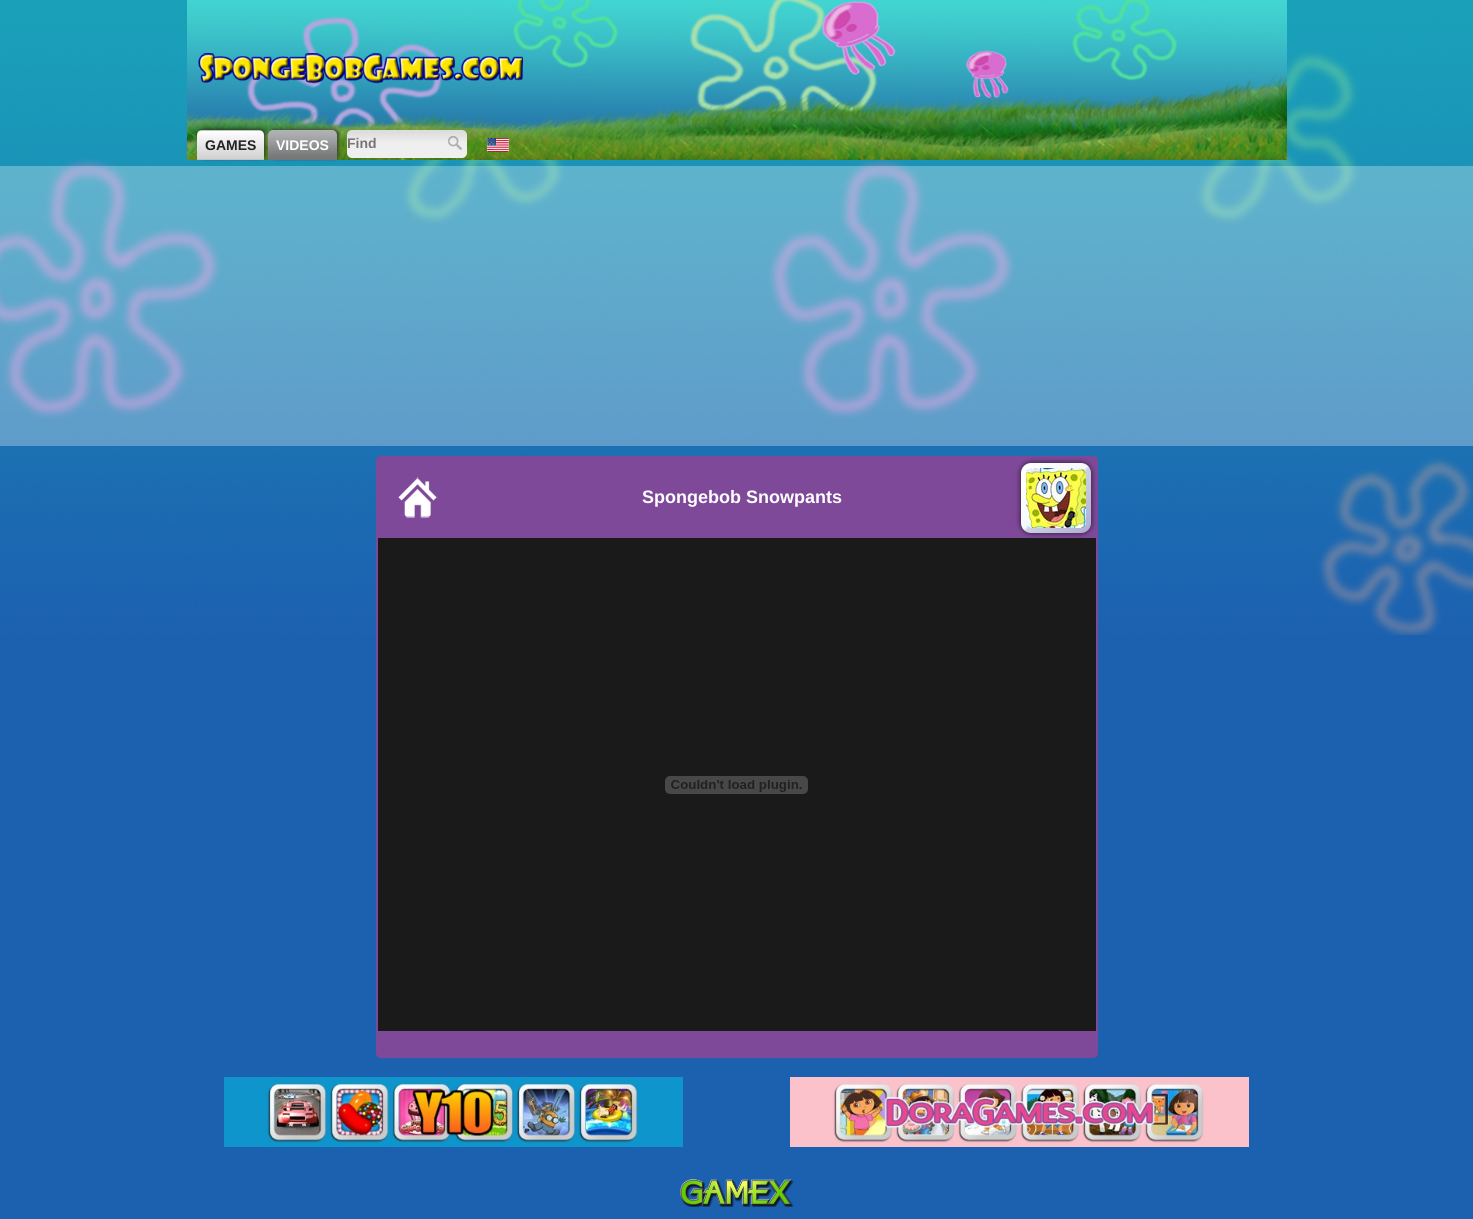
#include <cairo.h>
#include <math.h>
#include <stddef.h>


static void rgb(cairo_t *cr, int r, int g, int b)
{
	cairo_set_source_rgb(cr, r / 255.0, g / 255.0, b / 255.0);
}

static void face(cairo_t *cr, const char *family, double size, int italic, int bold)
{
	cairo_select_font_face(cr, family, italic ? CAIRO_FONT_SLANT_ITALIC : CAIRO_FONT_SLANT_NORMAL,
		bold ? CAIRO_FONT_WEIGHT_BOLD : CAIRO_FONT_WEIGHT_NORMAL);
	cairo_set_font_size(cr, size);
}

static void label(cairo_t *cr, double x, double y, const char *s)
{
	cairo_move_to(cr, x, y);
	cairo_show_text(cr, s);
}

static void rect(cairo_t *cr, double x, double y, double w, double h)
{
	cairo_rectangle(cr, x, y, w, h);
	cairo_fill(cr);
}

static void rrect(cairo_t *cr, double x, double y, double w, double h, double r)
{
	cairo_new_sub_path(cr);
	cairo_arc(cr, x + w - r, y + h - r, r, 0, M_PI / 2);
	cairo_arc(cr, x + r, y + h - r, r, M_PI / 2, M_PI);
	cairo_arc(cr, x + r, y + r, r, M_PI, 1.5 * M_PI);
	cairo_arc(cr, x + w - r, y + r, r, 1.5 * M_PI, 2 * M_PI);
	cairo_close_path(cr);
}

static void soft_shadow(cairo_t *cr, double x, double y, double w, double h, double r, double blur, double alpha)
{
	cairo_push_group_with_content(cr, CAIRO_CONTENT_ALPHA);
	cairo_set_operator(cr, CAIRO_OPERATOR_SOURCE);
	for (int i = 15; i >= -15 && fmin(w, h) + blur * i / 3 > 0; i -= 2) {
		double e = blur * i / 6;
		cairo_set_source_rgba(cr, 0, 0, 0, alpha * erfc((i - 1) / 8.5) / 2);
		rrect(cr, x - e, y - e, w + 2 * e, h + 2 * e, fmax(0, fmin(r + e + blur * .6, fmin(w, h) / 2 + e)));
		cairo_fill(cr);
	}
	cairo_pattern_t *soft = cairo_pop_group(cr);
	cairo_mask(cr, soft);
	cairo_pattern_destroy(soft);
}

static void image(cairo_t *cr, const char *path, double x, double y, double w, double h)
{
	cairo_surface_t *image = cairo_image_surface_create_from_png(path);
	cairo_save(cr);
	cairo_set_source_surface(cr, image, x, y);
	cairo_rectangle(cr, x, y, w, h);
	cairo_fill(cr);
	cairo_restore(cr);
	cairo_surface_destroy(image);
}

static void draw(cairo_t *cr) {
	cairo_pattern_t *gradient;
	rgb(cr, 27, 97, 176);
	cairo_paint(cr);
	image(cr, "image0.png", 0, 0, 1473, 635);
	image(cr, "image1.png", 187, 0, 1100, 160);
	image(cr, "image2.png", 198, 53, 325, 31);
	rgb(cr, 50, 50, 50);
	soft_shadow(cr, 199, 129, 67, 30, 5, 1.5, 0.75);
	image(cr, "image3.png", 197, 130, 67, 30);
	face(cr, "Liberation Sans", 14, 0, 1);
	rgb(cr, 34, 34, 34);
	label(cr, 205, 150, "GAMES");
	rgb(cr, 50, 50, 50);
	soft_shadow(cr, 270, 129, 69, 30, 5, 1.5, 0.75);
	image(cr, "image4.png", 268, 130, 69, 30);
	rgb(cr, 255, 255, 255);
	label(cr, 276, 150, "VIDEOS");
	gradient = cairo_pattern_create_linear(407, 130, 407, 158);
	cairo_pattern_add_color_stop_rgba(gradient, 0.08, 0.867, 0.867, 0.867, 1);
	cairo_pattern_add_color_stop_rgba(gradient, 0.45, 0.937, 0.937, 0.937, 1);
	cairo_set_source(cr, gradient);
	cairo_pattern_destroy(gradient);
	rrect(cr, 347, 130, 120, 28, 5);
	cairo_fill(cr);
	rgb(cr, 117, 117, 117);
	label(cr, 347, 148, "Find");
	image(cr, "image5.png", 448, 136, 14, 14);
	image(cr, "image6.png", 487, 138, 22, 14);
	cairo_set_source_rgba(cr, 1, 1, 1, 0.3);
	rect(cr, 0, 166, 1473, 280);
	rgb(cr, 126, 73, 153);
	rrect(cr, 377, 457, 720, 600, 4);
	cairo_fill_preserve(cr);
	cairo_stroke(cr);
	image(cr, "image7.png", 398, 477, 40, 41);
	face(cr, "Liberation Sans", 18, 0, 1);
	rgb(cr, 255, 255, 255);
	label(cr, 642, 503, "Spongebob Snowpants");
	rgb(cr, 0, 0, 0);
	soft_shadow(cr, 1020, 462, 72, 72, 11, 2.5, 0.53);
	gradient = cairo_pattern_create_linear(1021, 463, 1091, 533);
	cairo_pattern_add_color_stop_rgba(gradient, 0, 1, 1, 1, 1);
	cairo_pattern_add_color_stop_rgba(gradient, 0.49, 0.969, 0.973, 1, 1);
	cairo_pattern_add_color_stop_rgba(gradient, 0.52, 0.8, 0.82, 0.886, 1);
	cairo_pattern_add_color_stop_rgba(gradient, 1, 0.686, 0.671, 0.839, 1);
	cairo_set_source(cr, gradient);
	cairo_pattern_destroy(gradient);
	rrect(cr, 1021, 463, 70, 70, 10);
	cairo_fill(cr);
	image(cr, "image8.png", 1026, 468, 60, 60);
	rgb(cr, 26, 26, 26);
	rect(cr, 378, 538, 718, 493);
	image(cr, "image9.png", 665, 776, 143, 18);
	image(cr, "image10.png", 224, 1077, 459, 70);
	image(cr, "image11.png", 790, 1077, 459, 70);
	image(cr, "image12.png", 679, 1179, 115, 28);
}

int main(void) {
	cairo_surface_t *surface = cairo_image_surface_create(CAIRO_FORMAT_RGB24, 1473, 1219);
	cairo_t *cr = cairo_create(surface);
	cairo_font_options_t *options = cairo_font_options_create();
	cairo_font_options_set_hint_metrics(options, CAIRO_HINT_METRICS_OFF);
	cairo_font_options_set_hint_style(options, CAIRO_HINT_STYLE_NONE);
	cairo_set_font_options(cr, options);
	cairo_set_miter_limit(cr, 4);
	draw(cr);
	cairo_surface_write_to_png(surface, "render.png");
	cairo_font_options_destroy(options);
	cairo_destroy(cr);
	cairo_surface_destroy(surface);
	return 0;
}
